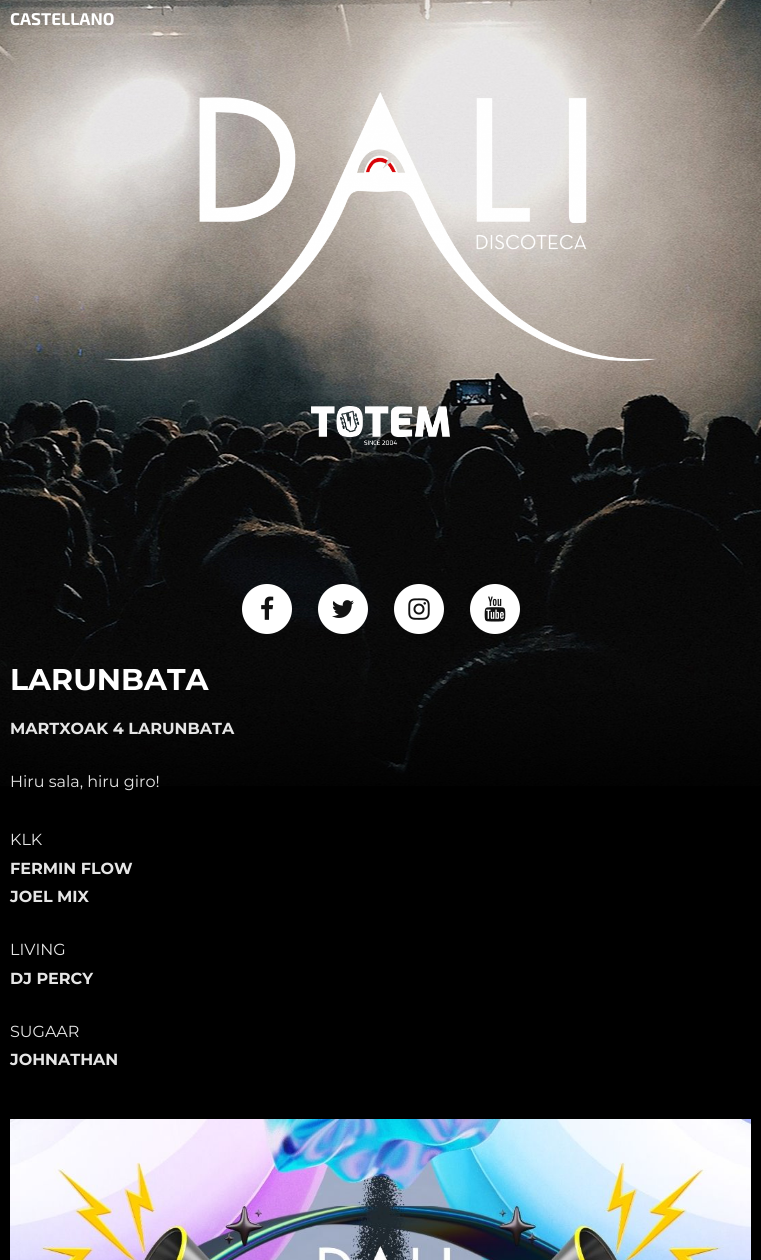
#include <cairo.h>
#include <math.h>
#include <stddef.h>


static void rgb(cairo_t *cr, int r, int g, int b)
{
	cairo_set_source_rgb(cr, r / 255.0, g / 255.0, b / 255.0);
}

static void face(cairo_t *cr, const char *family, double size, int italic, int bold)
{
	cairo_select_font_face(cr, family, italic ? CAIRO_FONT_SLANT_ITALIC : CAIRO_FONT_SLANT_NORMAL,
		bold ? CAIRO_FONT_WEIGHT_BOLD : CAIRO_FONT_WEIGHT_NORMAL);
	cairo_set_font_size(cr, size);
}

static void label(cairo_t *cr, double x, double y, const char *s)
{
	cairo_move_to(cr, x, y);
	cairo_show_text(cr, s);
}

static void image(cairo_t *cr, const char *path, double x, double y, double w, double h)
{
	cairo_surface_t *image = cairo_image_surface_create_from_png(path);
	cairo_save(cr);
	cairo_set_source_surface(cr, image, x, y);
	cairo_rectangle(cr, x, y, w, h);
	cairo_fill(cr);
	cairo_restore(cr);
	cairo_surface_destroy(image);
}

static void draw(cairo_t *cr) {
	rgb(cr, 0, 0, 0);
	cairo_paint(cr);
	image(cr, "image0.png", 0, 0, 761, 786);
	face(cr, "Exo 2", 17, 0, 1);
	rgb(cr, 255, 255, 255);
	label(cr, 10, 25, "CASTELLANO");
	image(cr, "image1.png", 103, 92, 555, 269);
	image(cr, "image2.png", 311, 406, 139, 39);
	cairo_arc(cr, 267, 609, 25, 0, 2 * M_PI);
	cairo_fill(cr);
	image(cr, "image3.png", 261, 596, 13, 24);
	cairo_arc(cr, 343, 609, 25, 0, 2 * M_PI);
	cairo_fill(cr);
	image(cr, "image4.png", 332, 600, 22, 18);
	cairo_arc(cr, 419, 609, 25, 0, 2 * M_PI);
	cairo_fill(cr);
	image(cr, "image5.png", 408, 598, 22, 22);
	cairo_arc(cr, 495, 609, 25, 0, 2 * M_PI);
	cairo_fill(cr);
	image(cr, "image6.png", 484, 596, 22, 26);
	face(cr, "Montserrat", 30, 0, 1);
	label(cr, 10, 690, "LARUNBATA");
	face(cr, "Montserrat", 16, 0, 1);
	rgb(cr, 229, 229, 229);
	label(cr, 10, 734, "MARTXOAK 4 LARUNBATA");
	face(cr, "Montserrat", 16, 0, 0);
	label(cr, 10, 787, "Hiru sala, hiru giro!");
	label(cr, 10, 845, "KLK");
	face(cr, "Montserrat", 16, 0, 1);
	label(cr, 10, 874, "FERMIN FLOW");
	label(cr, 10, 902, "JOEL MIX");
	face(cr, "Montserrat", 16, 0, 0);
	label(cr, 10, 955, "LIVING");
	face(cr, "Montserrat", 16, 0, 1);
	label(cr, 10, 984, "DJ PERCY");
	face(cr, "Montserrat", 16, 0, 0);
	label(cr, 10, 1037, "SUGAAR");
	face(cr, "Montserrat", 16, 0, 1);
	label(cr, 10, 1065, "JOHNATHAN");
	image(cr, "image7.png", 10, 1119, 741, 141);
}

int main(void) {
	cairo_surface_t *surface = cairo_image_surface_create(CAIRO_FORMAT_RGB24, 761, 1260);
	cairo_t *cr = cairo_create(surface);
	cairo_font_options_t *options = cairo_font_options_create();
	cairo_font_options_set_hint_metrics(options, CAIRO_HINT_METRICS_OFF);
	cairo_font_options_set_hint_style(options, CAIRO_HINT_STYLE_NONE);
	cairo_set_font_options(cr, options);
	cairo_set_miter_limit(cr, 4);
	draw(cr);
	cairo_surface_write_to_png(surface, "render.png");
	cairo_font_options_destroy(options);
	cairo_destroy(cr);
	cairo_surface_destroy(surface);
	return 0;
}
